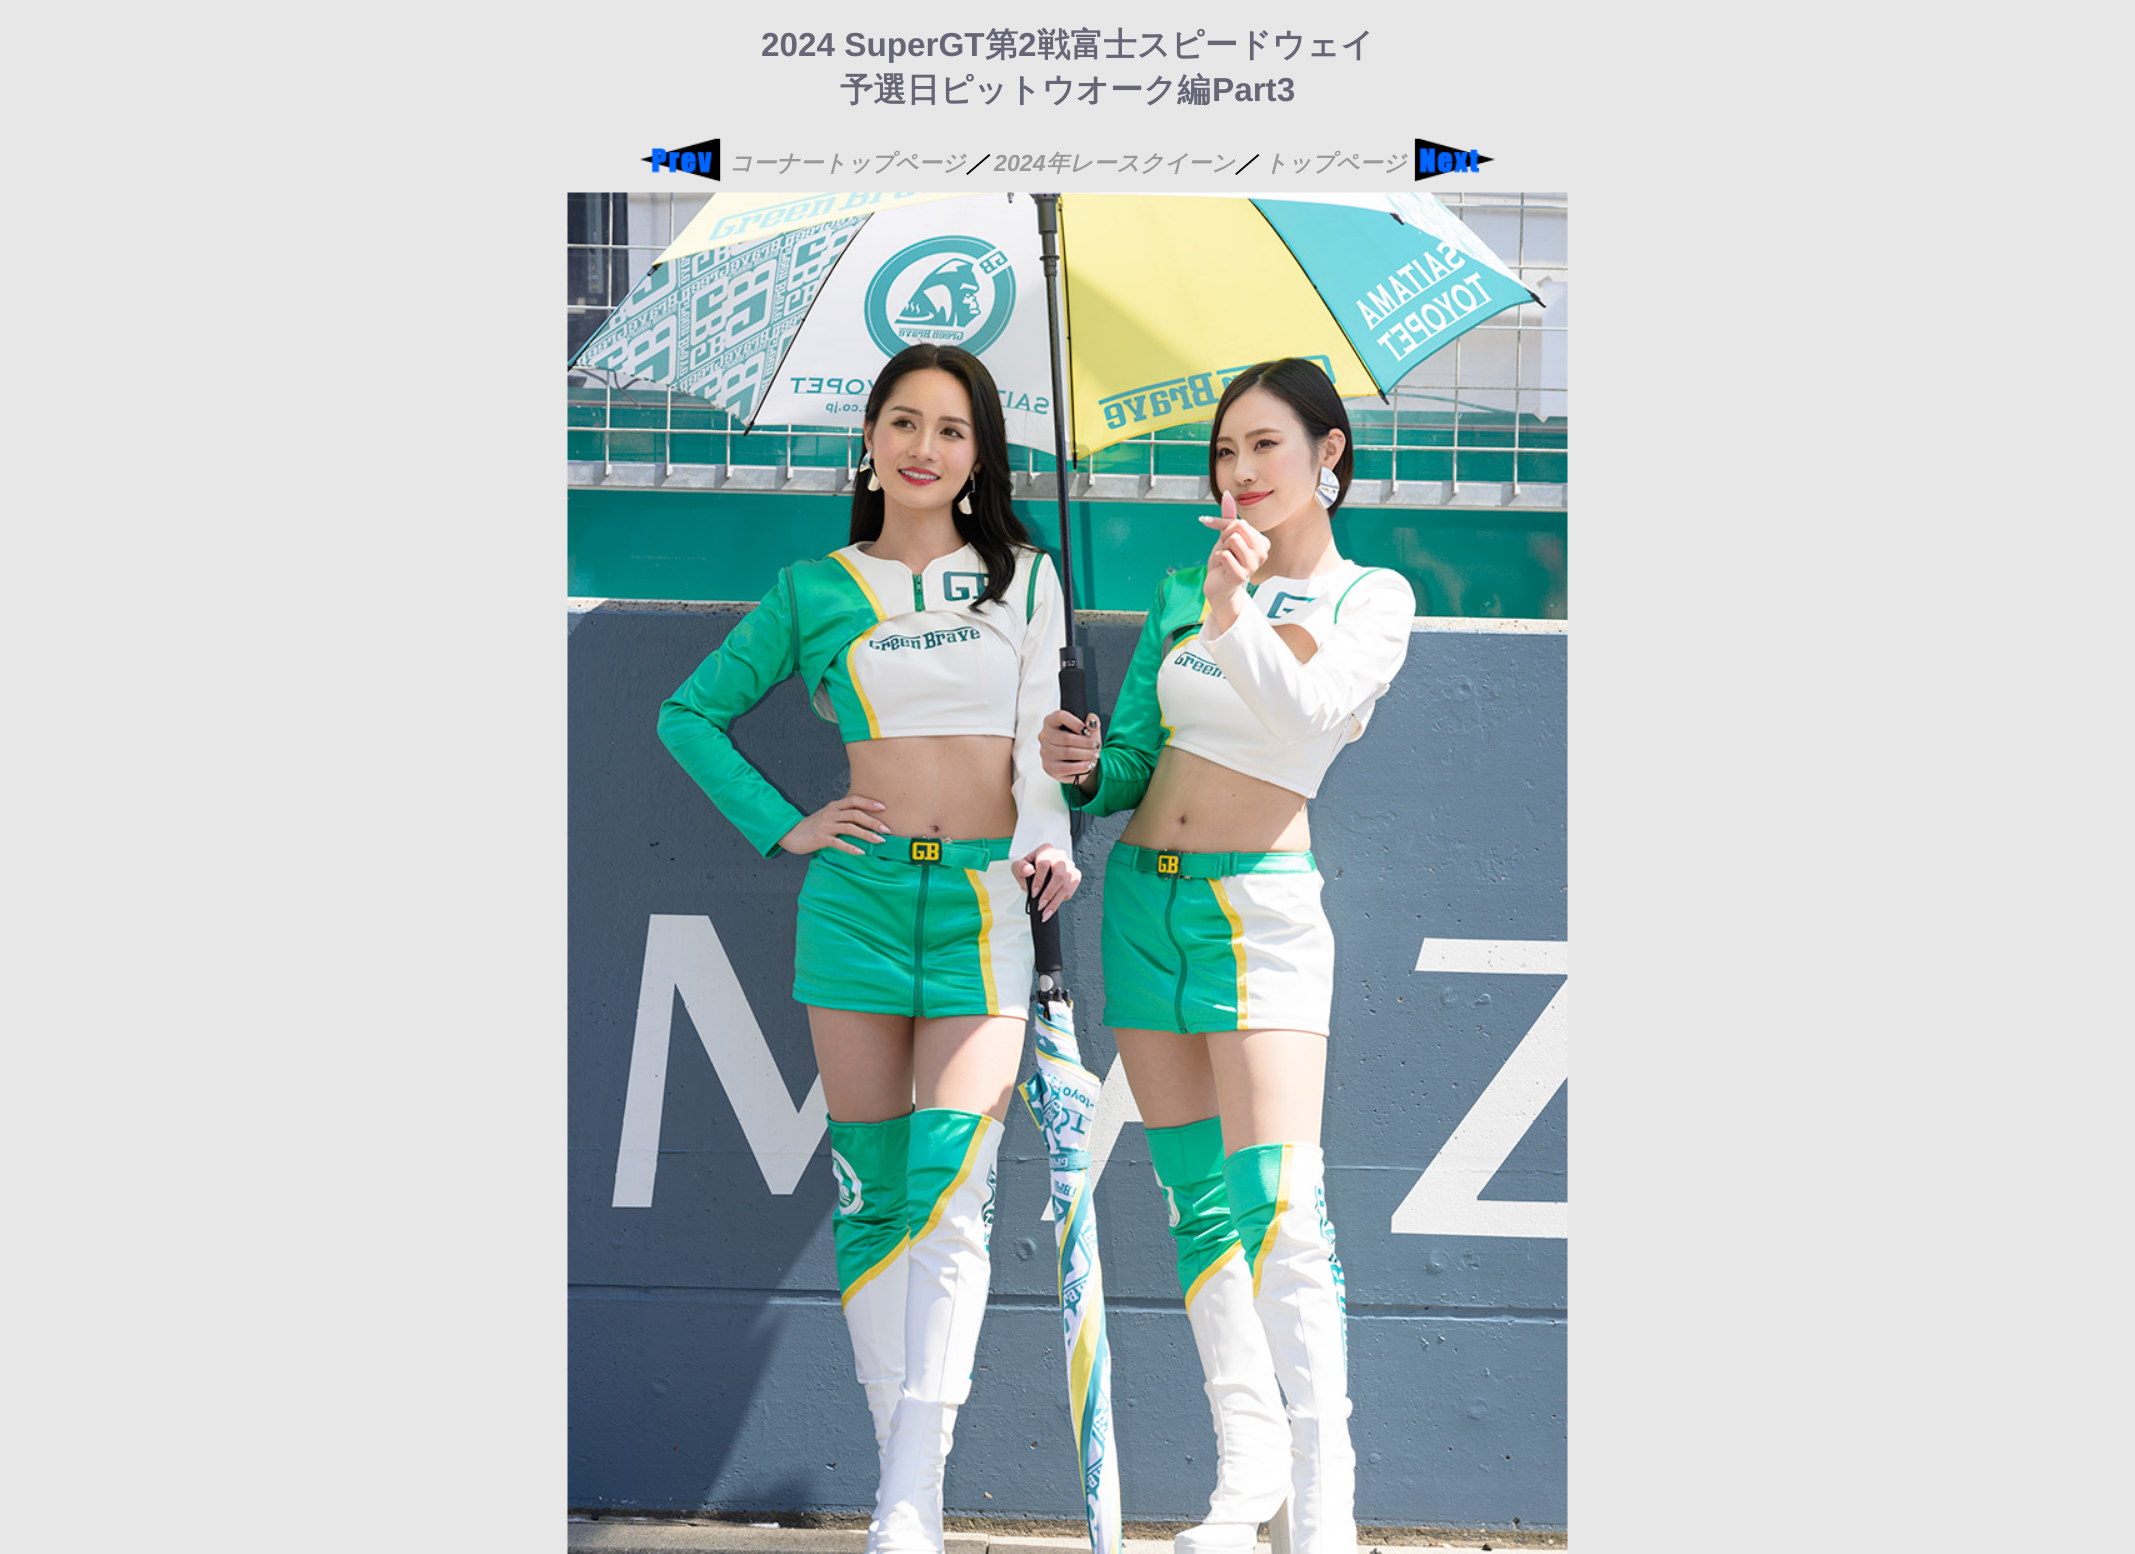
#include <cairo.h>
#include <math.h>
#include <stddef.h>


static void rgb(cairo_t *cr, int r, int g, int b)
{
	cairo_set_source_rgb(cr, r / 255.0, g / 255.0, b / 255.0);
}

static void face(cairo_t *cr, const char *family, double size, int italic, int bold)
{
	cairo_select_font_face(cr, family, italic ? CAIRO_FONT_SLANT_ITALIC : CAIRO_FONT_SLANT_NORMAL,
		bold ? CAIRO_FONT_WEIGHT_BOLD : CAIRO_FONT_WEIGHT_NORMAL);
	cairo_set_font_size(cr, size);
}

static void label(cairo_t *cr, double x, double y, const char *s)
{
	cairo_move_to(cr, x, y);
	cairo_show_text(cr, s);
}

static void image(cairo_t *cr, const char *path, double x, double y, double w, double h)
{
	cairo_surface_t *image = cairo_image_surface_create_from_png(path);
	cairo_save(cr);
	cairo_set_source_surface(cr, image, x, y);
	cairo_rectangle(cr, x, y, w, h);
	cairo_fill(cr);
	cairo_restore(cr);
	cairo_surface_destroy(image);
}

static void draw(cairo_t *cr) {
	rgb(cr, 232, 231, 231);
	cairo_paint(cr);
	face(cr, "Liberation Sans", 33.25, 0, 1);
	rgb(cr, 102, 102, 119);
	label(cr, 761, 56, "2024 SuperGT");
	face(cr, "WenQuanYi Zen Hei", 33.25, 0, 1);
	label(cr, 985, 56, "第");
	face(cr, "Liberation Sans", 33.25, 0, 1);
	label(cr, 1018, 56, "2");
	face(cr, "WenQuanYi Zen Hei", 33.25, 0, 1);
	label(cr, 1037, 56, "戦富士スピードウェイ");
	label(cr, 840, 101, "予選日ピットウオーク編");
	face(cr, "Liberation Sans", 33.25, 0, 1);
	label(cr, 1212, 101, "Part3");
	image(cr, "image0.png", 640, 138, 81, 44);
	face(cr, "WenQuanYi Zen Hei", 23.25, 1, 1);
	rgb(cr, 153, 153, 153);
	label(cr, 729, 171, "コーナートップページ");
	rgb(cr, 0, 0, 0);
	label(cr, 966, 171, "／");
	face(cr, "Liberation Sans", 23.25, 1, 1);
	rgb(cr, 153, 153, 153);
	label(cr, 994, 171, "2024");
	face(cr, "WenQuanYi Zen Hei", 23.25, 1, 1);
	label(cr, 1046, 171, "年レースクイーン");
	rgb(cr, 0, 0, 0);
	label(cr, 1235, 171, "／");
	rgb(cr, 153, 153, 153);
	label(cr, 1264, 171, "トップページ");
	image(cr, "image1.png", 1414, 138, 81, 44);
	image(cr, "image2.png", 567, 192, 1001, 1362);
}

int main(void) {
	cairo_surface_t *surface = cairo_image_surface_create(CAIRO_FORMAT_RGB24, 2135, 1554);
	cairo_t *cr = cairo_create(surface);
	cairo_font_options_t *options = cairo_font_options_create();
	cairo_font_options_set_hint_metrics(options, CAIRO_HINT_METRICS_OFF);
	cairo_font_options_set_hint_style(options, CAIRO_HINT_STYLE_NONE);
	cairo_set_font_options(cr, options);
	cairo_set_miter_limit(cr, 4);
	draw(cr);
	cairo_surface_write_to_png(surface, "render.png");
	cairo_font_options_destroy(options);
	cairo_destroy(cr);
	cairo_surface_destroy(surface);
	return 0;
}
